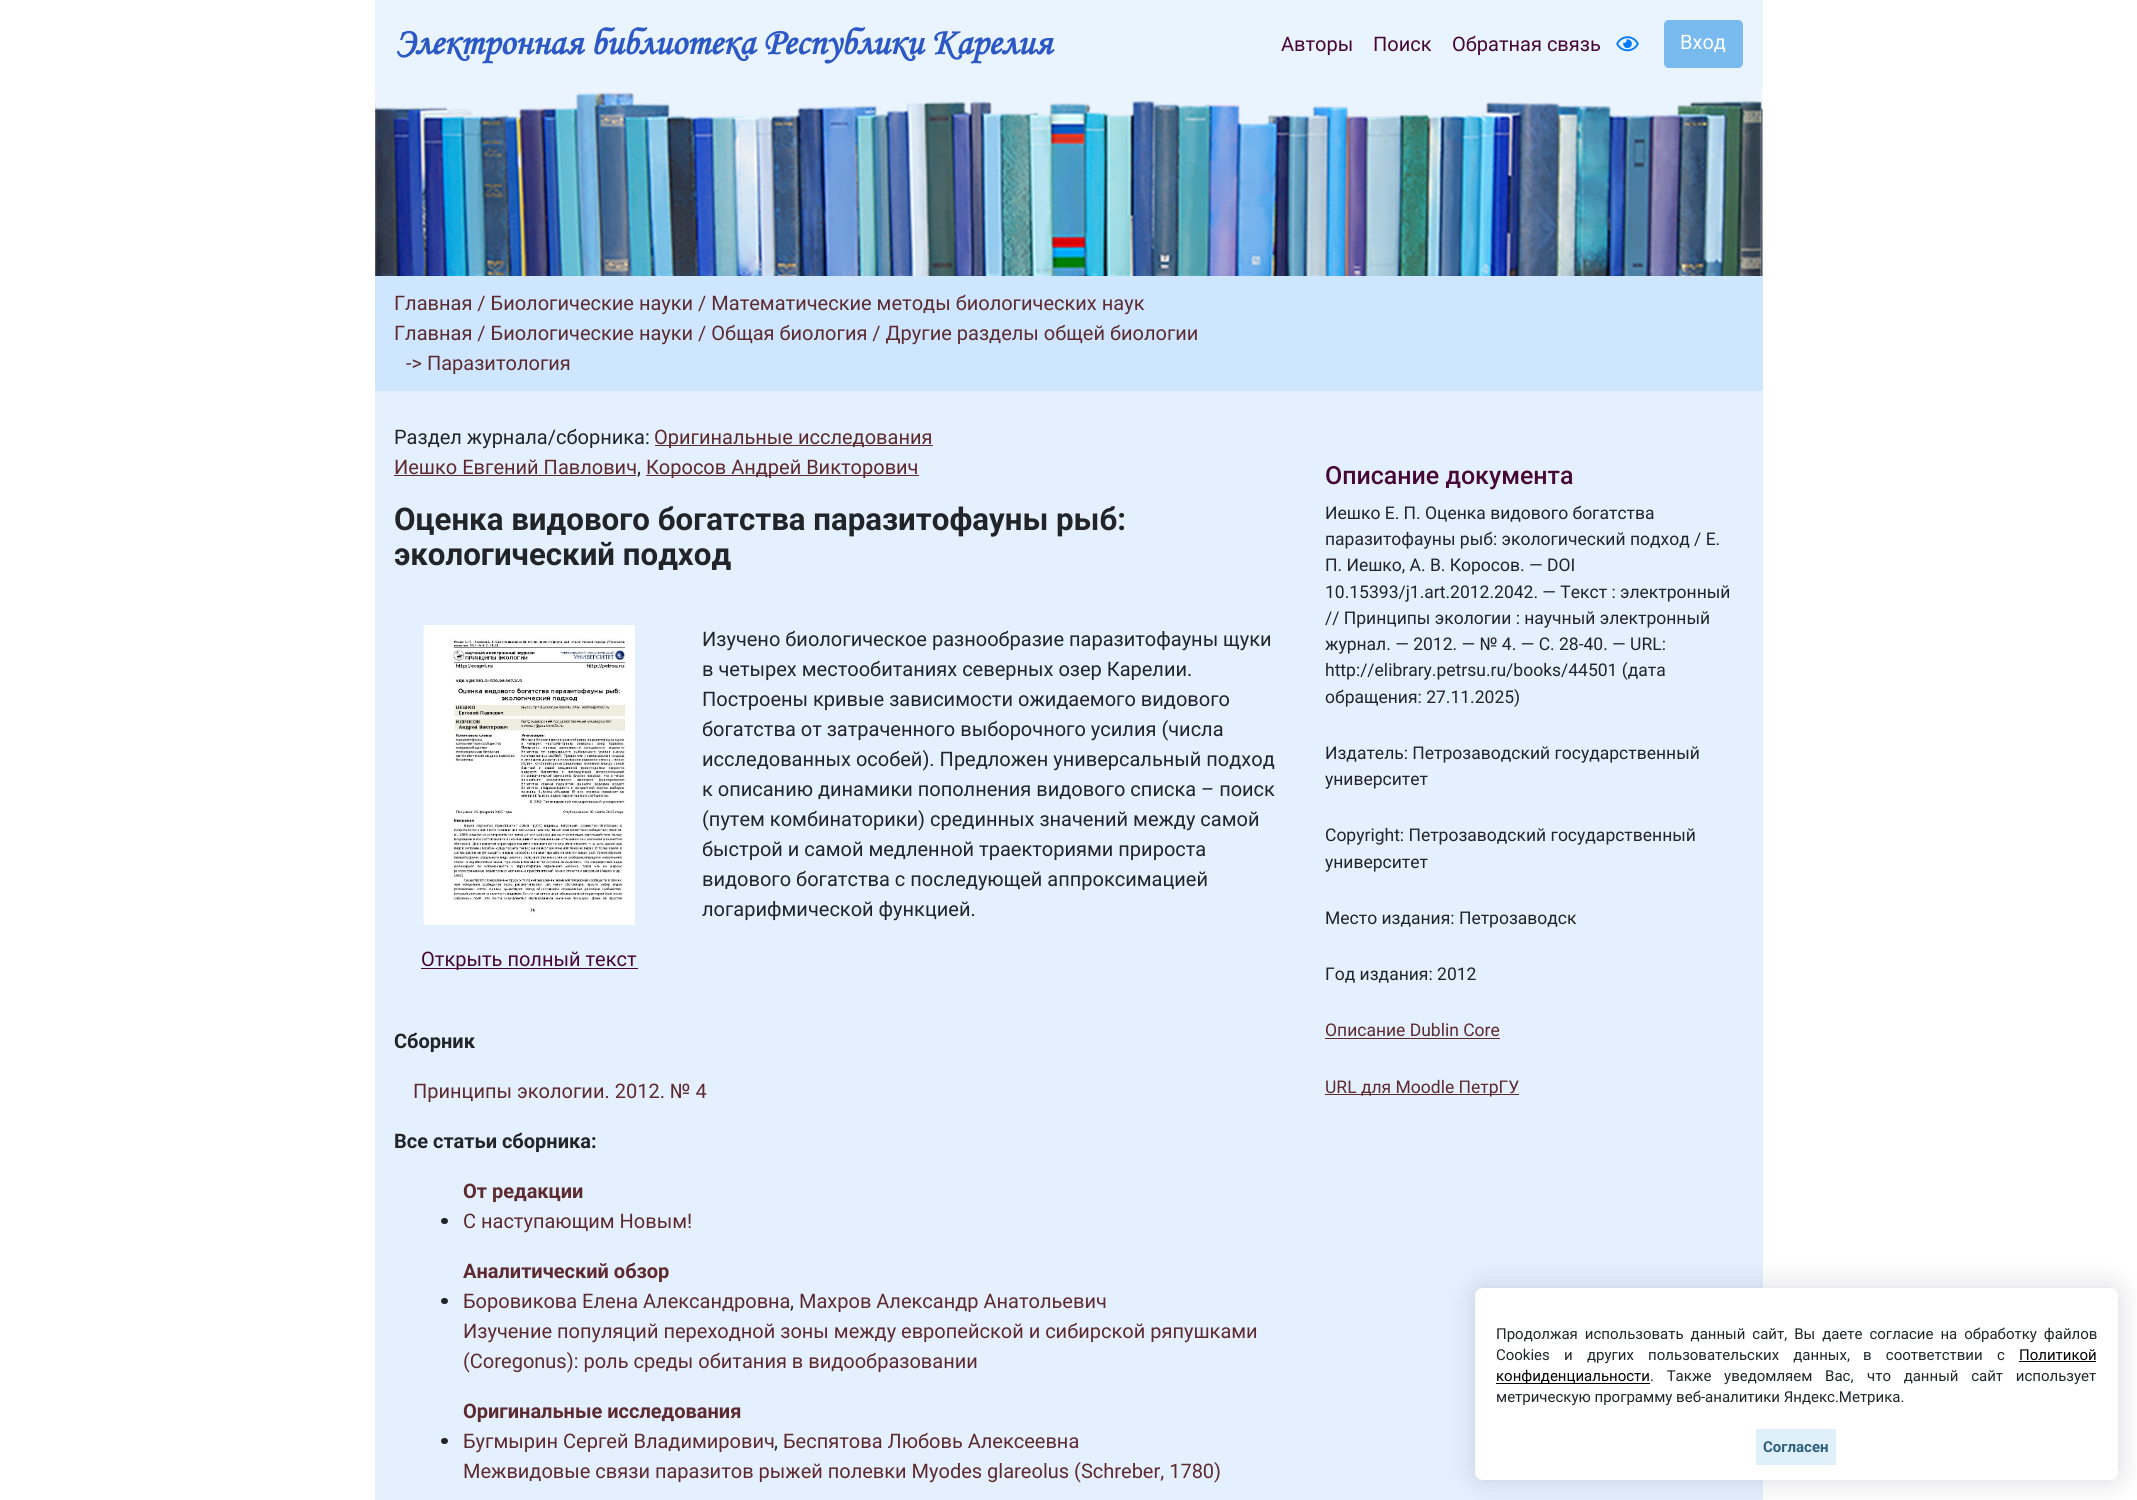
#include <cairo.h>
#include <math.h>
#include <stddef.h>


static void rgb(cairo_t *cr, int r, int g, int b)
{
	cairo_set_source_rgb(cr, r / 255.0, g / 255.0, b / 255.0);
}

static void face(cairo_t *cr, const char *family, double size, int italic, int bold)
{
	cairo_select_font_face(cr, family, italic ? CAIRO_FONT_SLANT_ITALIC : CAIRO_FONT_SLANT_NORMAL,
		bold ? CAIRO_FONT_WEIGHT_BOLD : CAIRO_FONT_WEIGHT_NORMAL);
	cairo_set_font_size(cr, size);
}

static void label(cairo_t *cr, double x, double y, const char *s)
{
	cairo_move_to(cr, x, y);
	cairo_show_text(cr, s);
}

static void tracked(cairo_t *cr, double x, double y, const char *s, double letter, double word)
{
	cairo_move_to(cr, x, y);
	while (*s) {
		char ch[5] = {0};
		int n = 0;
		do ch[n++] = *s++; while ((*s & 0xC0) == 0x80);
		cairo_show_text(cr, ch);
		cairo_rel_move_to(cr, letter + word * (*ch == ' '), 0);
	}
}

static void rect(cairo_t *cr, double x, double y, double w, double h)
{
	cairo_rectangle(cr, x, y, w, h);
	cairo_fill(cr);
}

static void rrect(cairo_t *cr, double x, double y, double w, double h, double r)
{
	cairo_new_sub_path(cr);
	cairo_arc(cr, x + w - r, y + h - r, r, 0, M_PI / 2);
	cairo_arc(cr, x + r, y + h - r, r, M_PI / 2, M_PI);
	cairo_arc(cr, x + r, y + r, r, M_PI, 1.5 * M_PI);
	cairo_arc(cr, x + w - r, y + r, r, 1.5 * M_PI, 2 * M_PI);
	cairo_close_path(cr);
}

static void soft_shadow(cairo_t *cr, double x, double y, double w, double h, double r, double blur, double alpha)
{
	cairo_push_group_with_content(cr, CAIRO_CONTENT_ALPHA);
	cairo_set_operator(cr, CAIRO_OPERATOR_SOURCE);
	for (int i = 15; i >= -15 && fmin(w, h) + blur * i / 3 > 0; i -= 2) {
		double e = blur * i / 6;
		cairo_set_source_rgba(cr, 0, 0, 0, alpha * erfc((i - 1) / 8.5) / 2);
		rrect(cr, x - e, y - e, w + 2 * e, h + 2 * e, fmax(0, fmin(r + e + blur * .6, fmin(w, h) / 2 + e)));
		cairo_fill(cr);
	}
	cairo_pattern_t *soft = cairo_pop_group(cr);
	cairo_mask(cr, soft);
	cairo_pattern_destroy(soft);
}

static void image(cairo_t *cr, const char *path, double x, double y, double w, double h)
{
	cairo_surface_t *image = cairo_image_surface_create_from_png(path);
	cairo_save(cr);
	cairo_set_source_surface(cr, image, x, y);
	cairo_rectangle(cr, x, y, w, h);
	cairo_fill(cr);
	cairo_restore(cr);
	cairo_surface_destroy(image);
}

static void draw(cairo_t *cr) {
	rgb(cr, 255, 255, 255);
	cairo_paint(cr);
	rgb(cr, 234, 244, 254);
	rect(cr, 375, 0, 1388, 89);
	face(cr, "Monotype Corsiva", 37.5, 1, 1);
	rgb(cr, 44, 88, 197);
	label(cr, 395, 54, "Электронная библиотека Республики Карелия");
	face(cr, "Roboto", 20, 0, 0);
	rgb(cr, 71, 7, 54);
	label(cr, 1281, 51, "Авторы");
	label(cr, 1373, 51, "Поиск");
	label(cr, 1452, 51, "Обратная связь");
	image(cr, "image0.png", 1616, 36, 23, 16);
	rgb(cr, 121, 187, 239);
	rrect(cr, 1664.5, 20.5, 78, 47, 4.5);
	cairo_fill_preserve(cr);
	cairo_set_line_width(cr, 1);
	cairo_stroke(cr);
	rgb(cr, 255, 255, 255);
	label(cr, 1680, 49, "Вход");
	image(cr, "image1.png", 375, 89, 1388, 187);
	rgb(cr, 206, 230, 255);
	rect(cr, 375, 276, 1388, 115);
	rgb(cr, 93, 43, 47);
	label(cr, 394, 310, "Главная / Биологические науки / Математические методы биологических наук");
	label(cr, 394, 340, "Главная / Биологические науки / Общая биология / Другие разделы общей биологии");
	label(cr, 406, 370, "-> Паразитология");
	rgb(cr, 229, 240, 255);
	rect(cr, 375, 391, 1388, 1109);
	rgb(cr, 33, 37, 41);
	label(cr, 394, 444, "Раздел журнала/сборника:");
	rgb(cr, 93, 43, 47);
	rect(cr, 655, 445, 278, 1);
	label(cr, 654, 444, "Оригинальные исследования");
	label(cr, 394, 474, "Иешко Евгений Павлович");
	rect(cr, 394, 475, 242, 1);
	rgb(cr, 33, 37, 41);
	label(cr, 637, 474, ",");
	rgb(cr, 93, 43, 47);
	rect(cr, 646, 475, 273, 1);
	label(cr, 646, 474, "Коросов Андрей Викторович");
	face(cr, "Roboto", 31.25, 0, 1);
	rgb(cr, 33, 37, 41);
	label(cr, 394, 530, "Оценка видового богатства паразитофауны рыб:");
	label(cr, 394, 565, "экологический подход");
	face(cr, "Roboto", 20, 0, 0);
	label(cr, 702, 646, "Изучено биологическое разнообразие паразитофауны щуки");
	label(cr, 702, 676, "в четырех местообитаниях северных озер Карелии.");
	label(cr, 702, 706, "Построены кривые зависимости ожидаемого видового");
	label(cr, 702, 736, "богатства от затраченного выборочного усилия (числа");
	label(cr, 702, 766, "исследованных особей). Предложен универсальный подход");
	label(cr, 702, 796, "к описанию динамики пополнения видового списка – поиск");
	label(cr, 702, 826, "(путем комбинаторики) срединных значений между самой");
	label(cr, 702, 856, "быстрой и самой медленной траекториями прироста");
	label(cr, 702, 886, "видового богатства с последующей аппроксимацией");
	label(cr, 702, 916, "логарифмической функцией.");
	image(cr, "image2.png", 423, 625, 212, 300);
	rgb(cr, 71, 7, 54);
	rect(cr, 421, 968, 217, 1);
	label(cr, 421, 966, "Открыть полный текст");
	face(cr, "Roboto", 20, 0, 1);
	rgb(cr, 33, 37, 41);
	label(cr, 394, 1048, "Сборник");
	face(cr, "Roboto", 20, 0, 0);
	rgb(cr, 93, 43, 47);
	label(cr, 413, 1098, "Принципы экологии. 2012. № 4");
	face(cr, "Roboto", 20, 0, 1);
	rgb(cr, 33, 37, 41);
	label(cr, 394, 1148, "Все статьи сборника:");
	rgb(cr, 93, 43, 47);
	label(cr, 463, 1198, "От редакции");
	rgb(cr, 33, 37, 41);
	rrect(cr, 441, 1218, 7, 6, 3);
	cairo_fill(cr);
	face(cr, "Roboto", 20, 0, 0);
	rgb(cr, 93, 43, 47);
	label(cr, 463, 1228, "С наступающим Новым!");
	face(cr, "Roboto", 20, 0, 1);
	label(cr, 463, 1278, "Аналитический обзор");
	rgb(cr, 33, 37, 41);
	rrect(cr, 441, 1298, 7, 6, 3);
	cairo_fill(cr);
	face(cr, "Roboto", 20, 0, 0);
	rgb(cr, 93, 43, 47);
	label(cr, 463, 1308, "Боровикова Елена Александровна");
	rgb(cr, 33, 37, 41);
	label(cr, 790, 1308, ",");
	rgb(cr, 93, 43, 47);
	label(cr, 799, 1308, "Махров Александр Анатольевич");
	label(cr, 463, 1338, "Изучение популяций переходной зоны между европейской и сибирской ряпушками");
	label(cr, 463, 1368, "(Coregonus): роль среды обитания в видообразовании");
	face(cr, "Roboto", 20, 0, 1);
	label(cr, 463, 1418, "Оригинальные исследования");
	rgb(cr, 33, 37, 41);
	rrect(cr, 441, 1438, 7, 6, 3);
	cairo_fill(cr);
	face(cr, "Roboto", 20, 0, 0);
	rgb(cr, 93, 43, 47);
	label(cr, 463, 1448, "Бугмырин Сергей Владимирович");
	rgb(cr, 33, 37, 41);
	label(cr, 774, 1448, ",");
	rgb(cr, 93, 43, 47);
	label(cr, 783, 1448, "Беспятова Любовь Алексеевна");
	label(cr, 463, 1478, "Межвидовые связи паразитов рыжей полевки Myodes glareolus (Schreber, 1780)");
	face(cr, "Roboto Medium", 25, 0, 0);
	rgb(cr, 71, 7, 54);
	label(cr, 1325, 484, "Описание документа");
	face(cr, "Roboto", 17.5, 0, 0);
	rgb(cr, 33, 37, 41);
	label(cr, 1325, 519, "Иешко Е. П. Оценка видового богатства");
	label(cr, 1325, 545, "паразитофауны рыб: экологический подход / Е.");
	label(cr, 1325, 571, "П. Иешко, А. В. Коросов. — DOI");
	label(cr, 1325, 598, "10.15393/j1.art.2012.2042. — Текст : электронный");
	label(cr, 1325, 624, "// Принципы экологии : научный электронный");
	label(cr, 1325, 650, "журнал. — 2012. — № 4. — С. 28-40. — URL:");
	label(cr, 1325, 676, "http://elibrary.petrsu.ru/books/44501 (дата");
	label(cr, 1325, 703, "обращения: 27.11.2025)");
	label(cr, 1325, 759, "Издатель: Петрозаводский государственный");
	label(cr, 1325, 785, "университет");
	label(cr, 1325, 841, "Copyright: Петрозаводский государственный");
	label(cr, 1325, 868, "университет");
	label(cr, 1325, 924, "Место издания: Петрозаводск");
	label(cr, 1325, 980, "Год издания: 2012");
	rgb(cr, 93, 43, 47);
	label(cr, 1325, 1036, "Описание Dublin Core");
	rect(cr, 1325, 1038, 175, 1);
	rect(cr, 1325, 1094, 194, 1);
	label(cr, 1325, 1093, "URL для Moodle ПетрГУ");
	rgb(cr, 5, 0, 31);
	soft_shadow(cr, 1475, 1288, 643, 192, 8, 15, 0.15);
	rgb(cr, 255, 255, 255);
	rrect(cr, 1475, 1288, 643, 192, 8);
	cairo_fill(cr);
	face(cr, "Roboto", 15, 0, 0);
	rgb(cr, 33, 37, 41);
	tracked(cr, 1496, 1339, "Продолжая использовать данный сайт, Вы даете согласие на обработку файлов", 0, 3.25);
	tracked(cr, 1496, 1360, "Cookies и других пользовательских данных,", 0, 10.5);
	tracked(cr, 1863, 1360, "в соответствии с", 0, 10.5);
	rgb(cr, 0, 0, 0);
	label(cr, 2019, 1360, "Политикой");
	rect(cr, 2019, 1361, 77, 1);
	rect(cr, 1496, 1383, 154, 1);
	label(cr, 1496, 1381, "конфиденциальности");
	rgb(cr, 33, 37, 41);
	tracked(cr, 1650, 1381, ". Также уведомляем Вас,", 0, 9);
	tracked(cr, 1867, 1381, "что данный сайт использует", 0, 9);
	label(cr, 1496, 1402, "метрическую программу веб-аналитики Яндекс.Метрика.");
	rgb(cr, 224, 240, 250);
	rect(cr, 1756, 1429, 80, 36);
	face(cr, "Roboto", 15, 0, 1);
	rgb(cr, 45, 96, 125);
	label(cr, 1763, 1452, "Согласен");
}

int main(void) {
	cairo_surface_t *surface = cairo_image_surface_create(CAIRO_FORMAT_RGB24, 2137, 1500);
	cairo_t *cr = cairo_create(surface);
	cairo_font_options_t *options = cairo_font_options_create();
	cairo_font_options_set_hint_metrics(options, CAIRO_HINT_METRICS_OFF);
	cairo_font_options_set_hint_style(options, CAIRO_HINT_STYLE_NONE);
	cairo_set_font_options(cr, options);
	cairo_set_miter_limit(cr, 4);
	draw(cr);
	cairo_surface_write_to_png(surface, "render.png");
	cairo_font_options_destroy(options);
	cairo_destroy(cr);
	cairo_surface_destroy(surface);
	return 0;
}
